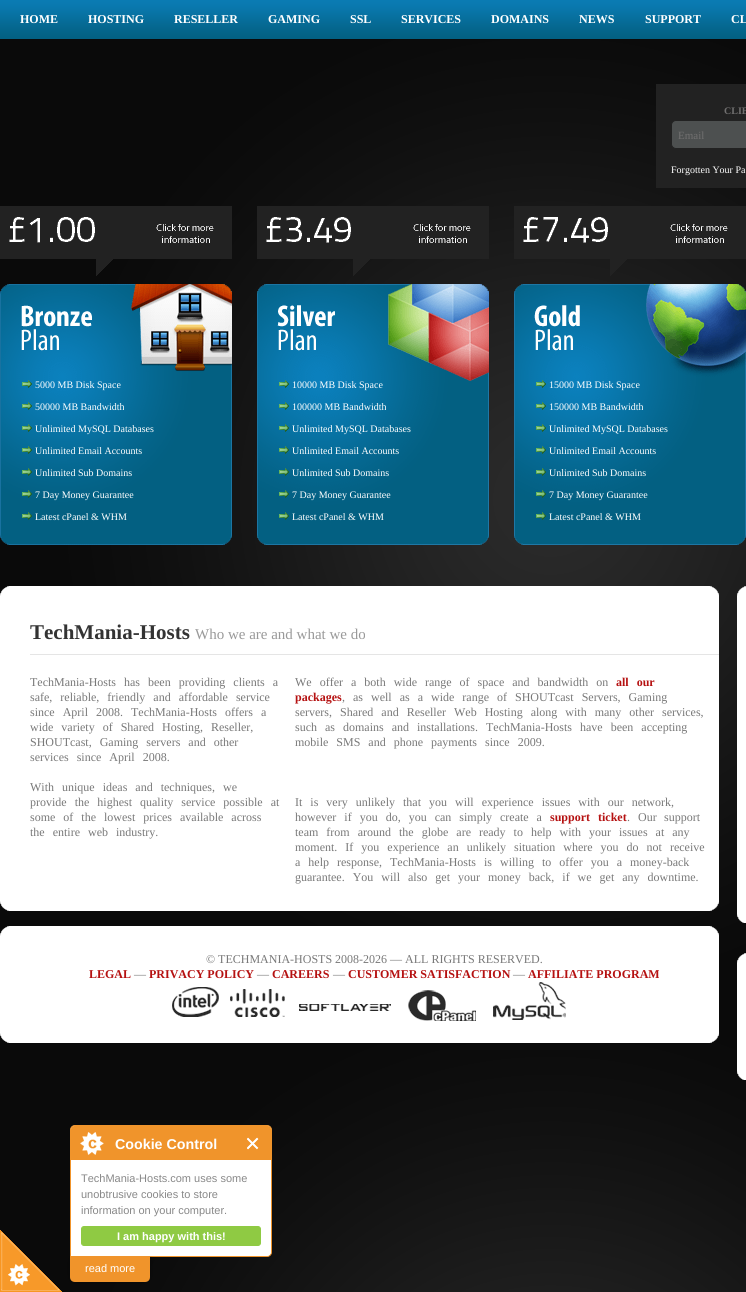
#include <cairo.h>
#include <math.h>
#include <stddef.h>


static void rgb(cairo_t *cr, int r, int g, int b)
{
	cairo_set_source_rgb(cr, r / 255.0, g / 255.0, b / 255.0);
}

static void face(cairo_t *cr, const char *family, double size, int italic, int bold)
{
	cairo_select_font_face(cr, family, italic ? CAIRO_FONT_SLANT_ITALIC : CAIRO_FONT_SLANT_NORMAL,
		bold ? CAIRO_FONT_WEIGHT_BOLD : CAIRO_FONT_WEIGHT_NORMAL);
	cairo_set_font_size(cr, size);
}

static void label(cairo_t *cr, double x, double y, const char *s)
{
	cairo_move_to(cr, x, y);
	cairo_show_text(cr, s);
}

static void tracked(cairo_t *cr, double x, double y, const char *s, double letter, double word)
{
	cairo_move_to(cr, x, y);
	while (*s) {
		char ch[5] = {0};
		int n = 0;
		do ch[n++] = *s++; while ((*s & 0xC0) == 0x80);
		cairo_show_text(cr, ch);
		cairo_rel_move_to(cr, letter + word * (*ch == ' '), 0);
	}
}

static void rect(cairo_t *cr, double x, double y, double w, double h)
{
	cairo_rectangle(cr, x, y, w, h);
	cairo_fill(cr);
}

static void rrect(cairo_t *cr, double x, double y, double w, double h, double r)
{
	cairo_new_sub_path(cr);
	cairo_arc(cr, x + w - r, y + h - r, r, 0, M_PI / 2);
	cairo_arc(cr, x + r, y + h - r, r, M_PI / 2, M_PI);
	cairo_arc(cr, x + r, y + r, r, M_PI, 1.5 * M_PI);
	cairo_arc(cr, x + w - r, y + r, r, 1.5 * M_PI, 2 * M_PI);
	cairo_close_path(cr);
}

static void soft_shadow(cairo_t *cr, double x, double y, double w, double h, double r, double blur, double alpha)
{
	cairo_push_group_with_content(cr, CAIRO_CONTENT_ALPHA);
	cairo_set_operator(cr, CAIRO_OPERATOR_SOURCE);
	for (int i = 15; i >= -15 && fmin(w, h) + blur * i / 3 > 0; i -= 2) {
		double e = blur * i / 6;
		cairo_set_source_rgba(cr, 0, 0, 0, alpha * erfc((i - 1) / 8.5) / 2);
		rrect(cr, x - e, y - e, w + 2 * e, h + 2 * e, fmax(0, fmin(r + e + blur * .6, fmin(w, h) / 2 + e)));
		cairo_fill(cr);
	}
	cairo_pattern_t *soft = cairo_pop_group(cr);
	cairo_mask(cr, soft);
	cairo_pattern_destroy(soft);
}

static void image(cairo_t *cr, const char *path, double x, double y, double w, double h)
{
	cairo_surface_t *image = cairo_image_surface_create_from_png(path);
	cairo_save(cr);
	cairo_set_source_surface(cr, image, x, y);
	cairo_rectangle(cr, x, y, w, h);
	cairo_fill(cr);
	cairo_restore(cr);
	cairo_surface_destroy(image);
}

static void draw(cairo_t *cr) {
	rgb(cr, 255, 255, 255);
	cairo_paint(cr);
	image(cr, "image0.png", 0, 39, 746, 1253);
	image(cr, "image1.png", 0, 0, 746, 39);
	face(cr, "Liberation Serif", 12, 0, 1);
	rgb(cr, 255, 255, 255);
	label(cr, 20, 23, "HOME");
	label(cr, 88, 23, "HOSTING");
	label(cr, 174, 23, "RESELLER");
	label(cr, 268, 23, "GAMING");
	label(cr, 350, 23, "SSL");
	label(cr, 401, 23, "SERVICES");
	label(cr, 491, 23, "DOMAINS");
	label(cr, 579, 23, "NEWS");
	label(cr, 645, 23, "SUPPORT");
	label(cr, 731, 23, "CL");
	rgb(cr, 34, 34, 34);
	rect(cr, 656, 84, 90, 104);
	face(cr, "Liberation Serif", 10, 0, 1);
	rgb(cr, 113, 112, 112);
	label(cr, 724, 114, "CLIE");
	rgb(cr, 77, 80, 80);
	rrect(cr, 671.5, 120.5, 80, 28, 4.5);
	cairo_fill_preserve(cr);
	rgb(cr, 34, 34, 34);
	cairo_set_line_width(cr, 1);
	cairo_stroke(cr);
	face(cr, "Liberation Serif", 11, 0, 0);
	rgb(cr, 113, 112, 112);
	label(cr, 678, 139, "Email");
	face(cr, "Liberation Serif", 10, 0, 0);
	rgb(cr, 255, 255, 255);
	label(cr, 671, 173, "Forgotten Your Pa");
	image(cr, "image2.png", 0, 206, 232, 70);
	image(cr, "image3.png", 257, 206, 232, 70);
	image(cr, "image4.png", 514, 206, 232, 70);
	image(cr, "image5.png", 0, 284, 232, 261);
	image(cr, "image6.png", 22, 380, 10, 8);
	label(cr, 35, 388, "5000 MB Disk Space");
	image(cr, "image7.png", 22, 402, 10, 8);
	label(cr, 35, 410, "50000 MB Bandwidth");
	image(cr, "image8.png", 22, 424, 10, 8);
	label(cr, 35, 432, "Unlimited MySQL Databases");
	image(cr, "image9.png", 22, 446, 10, 8);
	label(cr, 35, 454, "Unlimited Email Accounts");
	image(cr, "image10.png", 22, 468, 10, 8);
	label(cr, 35, 476, "Unlimited Sub Domains");
	image(cr, "image11.png", 22, 490, 10, 8);
	label(cr, 35, 498, "7 Day Money Guarantee");
	image(cr, "image12.png", 22, 512, 10, 8);
	label(cr, 35, 520, "Latest cPanel & WHM");
	image(cr, "image13.png", 257, 284, 232, 261);
	image(cr, "image14.png", 279, 380, 10, 8);
	label(cr, 292, 388, "10000 MB Disk Space");
	image(cr, "image15.png", 279, 402, 10, 8);
	label(cr, 292, 410, "100000 MB Bandwidth");
	image(cr, "image16.png", 279, 424, 10, 8);
	label(cr, 292, 432, "Unlimited MySQL Databases");
	image(cr, "image17.png", 279, 446, 10, 8);
	label(cr, 292, 454, "Unlimited Email Accounts");
	image(cr, "image18.png", 279, 468, 10, 8);
	label(cr, 292, 476, "Unlimited Sub Domains");
	image(cr, "image19.png", 279, 490, 10, 8);
	label(cr, 292, 498, "7 Day Money Guarantee");
	image(cr, "image12.png", 279, 512, 10, 8);
	label(cr, 292, 520, "Latest cPanel & WHM");
	image(cr, "image20.png", 514, 284, 232, 261);
	image(cr, "image21.png", 536, 380, 10, 8);
	label(cr, 549, 388, "15000 MB Disk Space");
	image(cr, "image22.png", 536, 402, 10, 8);
	label(cr, 549, 410, "150000 MB Bandwidth");
	image(cr, "image23.png", 536, 424, 10, 8);
	label(cr, 549, 432, "Unlimited MySQL Databases");
	image(cr, "image24.png", 536, 446, 10, 8);
	label(cr, 549, 454, "Unlimited Email Accounts");
	image(cr, "image25.png", 536, 468, 10, 8);
	label(cr, 549, 476, "Unlimited Sub Domains");
	image(cr, "image26.png", 536, 490, 10, 8);
	label(cr, 549, 498, "7 Day Money Guarantee");
	image(cr, "image12.png", 536, 512, 10, 8);
	label(cr, 549, 520, "Latest cPanel & WHM");
	image(cr, "image27.png", 0, 586, 719, 11);
	rect(cr, 0, 597, 719, 303);
	rgb(cr, 229, 229, 229);
	rect(cr, 30, 654, 689, 1);
	face(cr, "Liberation Serif", 21, 0, 1);
	rgb(cr, 51, 51, 51);
	label(cr, 30, 639, "TechMania-Hosts");
	face(cr, "Liberation Serif", 15, 0, 0);
	rgb(cr, 153, 153, 153);
	label(cr, 195, 639, "Who we are and what we do");
	face(cr, "Liberation Serif", 12, 0, 0);
	rgb(cr, 120, 120, 120);
	tracked(cr, 30, 686, "TechMania-Hosts has been providing clients a", 0, 5);
	tracked(cr, 30, 701, "safe, reliable, friendly and affordable service", 0, 5);
	tracked(cr, 30, 716, "since April 2008. TechMania-Hosts offers a", 0, 5);
	tracked(cr, 30, 731, "wide variety of Shared", 0, 5);
	tracked(cr, 162, 731, "Hosting, Reseller,", 0, 5);
	tracked(cr, 30, 746, "SHOUTcast, Gaming servers and other", 0, 5);
	tracked(cr, 30, 761, "services since April 2008.", 0, 5);
	tracked(cr, 30, 791, "With unique ideas and techniques, we", 0, 5);
	tracked(cr, 30, 806, "provide the highest quality service possible at", 0, 5);
	tracked(cr, 30, 821, "some of the lowest prices available across", 0, 5);
	tracked(cr, 30, 836, "the entire web industry.", 0, 5);
	tracked(cr, 295, 686, "We offer a both wide range of space and bandwidth on", 0, 5);
	face(cr, "Liberation Serif", 12, 0, 1);
	rgb(cr, 181, 17, 17);
	tracked(cr, 616, 686, "all our", 0, 5);
	label(cr, 295, 701, "packages");
	face(cr, "Liberation Serif", 12, 0, 0);
	rgb(cr, 120, 120, 120);
	tracked(cr, 342, 701, ", as well as a wide range of SHOUTcast Servers, Gaming", 0, 5);
	label(cr, 295, 716, "servers,");
	tracked(cr, 340, 716, "Shared and Reseller Web Hosting along with many other services,", 0, 5);
	tracked(cr, 295, 731, "such as domains and installations. TechMania-Hosts have been accepting", 0, 5);
	tracked(cr, 295, 746, "mobile SMS and phone", 0, 5);
	tracked(cr, 431, 746, "payments since 2009.", 0, 5);
	tracked(cr, 295, 806, "It is very unlikely that you will experience issues with our network,", 0, 5);
	tracked(cr, 295, 821, "however if you do, you can simply create a", 0, 5);
	face(cr, "Liberation Serif", 12, 0, 1);
	rgb(cr, 181, 17, 17);
	tracked(cr, 550, 821, "support ticket", 0, 5);
	face(cr, "Liberation Serif", 12, 0, 0);
	rgb(cr, 120, 120, 120);
	tracked(cr, 627, 821, ". Our", 0, 5);
	label(cr, 664, 821, "support");
	tracked(cr, 295, 836, "team from around the globe are ready to help with your issues at any", 0, 5);
	tracked(cr, 295, 851, "moment. If you experience an unlikely situation where you do not receive", 0, 5);
	tracked(cr, 295, 866, "a help", 0, 5);
	tracked(cr, 337, 866, "response, TechMania-Hosts is willing to offer you a money-back", 0, 5);
	tracked(cr, 295, 881, "guarantee. You will also get your money back, if we get any downtime.", 0, 5);
	image(cr, "image28.png", 0, 900, 719, 11);
	image(cr, "image29.png", 0, 926, 719, 11);
	rgb(cr, 255, 255, 255);
	rect(cr, 0, 937, 719, 95);
	rgb(cr, 120, 120, 120);
	label(cr, 206, 963, "© TECHMANIA-HOSTS 2008-2026 — ALL RIGHTS RESERVED.");
	face(cr, "Liberation Serif", 12, 0, 1);
	rgb(cr, 181, 17, 17);
	label(cr, 89, 978, "LEGAL");
	face(cr, "Liberation Serif", 12, 0, 0);
	rgb(cr, 120, 120, 120);
	label(cr, 134, 978, "—");
	face(cr, "Liberation Serif", 12, 0, 1);
	rgb(cr, 181, 17, 17);
	label(cr, 149, 978, "PRIVACY POLICY");
	face(cr, "Liberation Serif", 12, 0, 0);
	rgb(cr, 120, 120, 120);
	label(cr, 257, 978, "—");
	face(cr, "Liberation Serif", 12, 0, 1);
	rgb(cr, 181, 17, 17);
	label(cr, 272, 978, "CAREERS");
	face(cr, "Liberation Serif", 12, 0, 0);
	rgb(cr, 120, 120, 120);
	label(cr, 333, 978, "—");
	face(cr, "Liberation Serif", 12, 0, 1);
	rgb(cr, 181, 17, 17);
	label(cr, 348, 978, "CUSTOMER SATISFACTION");
	face(cr, "Liberation Serif", 12, 0, 0);
	rgb(cr, 120, 120, 120);
	label(cr, 513, 978, "—");
	face(cr, "Liberation Serif", 12, 0, 1);
	rgb(cr, 181, 17, 17);
	label(cr, 528, 978, "AFFILIATE PROGRAM");
	image(cr, "image30.png", 172, 982, 394, 39);
	image(cr, "image31.png", 0, 1032, 719, 11);
	image(cr, "image32.png", 737, 586, 9, 11);
	rgb(cr, 255, 255, 255);
	rect(cr, 737, 597, 9, 315);
	image(cr, "image33.png", 737, 912, 9, 11);
	image(cr, "image34.png", 737, 953, 9, 11);
	rect(cr, 737, 964, 9, 105);
	image(cr, "image35.png", 737, 1069, 9, 11);
	image(cr, "image36.png", 0, 1230, 62, 62);
	cairo_new_path(cr);
	cairo_move_to(cr, 75, 1125.5);
	cairo_line_to(cr, 267, 1125.5);
	cairo_curve_to(cr, 269.5, 1125.5, 271.5, 1127.5, 271.5, 1130);
	cairo_line_to(cr, 271.5, 1252);
	cairo_curve_to(cr, 271.5, 1254.5, 269.5, 1256.5, 267, 1256.5);
	cairo_line_to(cr, 70.5, 1256.5);
	cairo_line_to(cr, 70.5, 1130);
	cairo_curve_to(cr, 70.5, 1127.5, 72.5, 1125.5, 75, 1125.5);
	cairo_close_path(cr);
	cairo_fill_preserve(cr);
	rgb(cr, 240, 148, 43);
	cairo_stroke(cr);
	rgb(cr, 0, 0, 0);
	soft_shadow(cr, 70, 1255, 80, 27, 5, 2.5, 0.3);
	rgb(cr, 240, 148, 43);
	cairo_new_path(cr);
	cairo_move_to(cr, 70, 1255);
	cairo_line_to(cr, 150, 1255);
	cairo_line_to(cr, 150, 1277);
	cairo_curve_to(cr, 150, 1280, 148, 1282, 145, 1282);
	cairo_line_to(cr, 75, 1282);
	cairo_curve_to(cr, 72, 1282, 70, 1280, 70, 1277);
	cairo_close_path(cr);
	cairo_fill(cr);
	rgb(cr, 255, 255, 255);
	cairo_new_path(cr);
	cairo_move_to(cr, 76, 1126);
	cairo_line_to(cr, 266, 1126);
	cairo_curve_to(cr, 269, 1126, 271, 1128, 271, 1131);
	cairo_line_to(cr, 271, 1251);
	cairo_curve_to(cr, 271, 1254, 269, 1256, 266, 1256);
	cairo_line_to(cr, 71, 1256);
	cairo_line_to(cr, 71, 1131);
	cairo_curve_to(cr, 71, 1128, 73, 1126, 76, 1126);
	cairo_close_path(cr);
	cairo_fill(cr);
	rgb(cr, 240, 148, 43);
	cairo_new_path(cr);
	cairo_move_to(cr, 74, 1126);
	cairo_line_to(cr, 268, 1126);
	cairo_curve_to(cr, 269.5, 1126, 271, 1127.5, 271, 1129);
	cairo_line_to(cr, 271, 1160);
	cairo_line_to(cr, 71, 1160);
	cairo_line_to(cr, 71, 1129);
	cairo_curve_to(cr, 71, 1127.5, 72.5, 1126, 74, 1126);
	cairo_close_path(cr);
	cairo_fill(cr);
	image(cr, "image37.png", 80, 1132, 24, 23);
	face(cr, "Liberation Sans", 14.25, 0, 1);
	rgb(cr, 255, 255, 255);
	label(cr, 115, 1149, "Cookie Control");
	image(cr, "image38.png", 247, 1137, 12, 13);
	face(cr, "Liberation Sans", 11, 0, 0);
	rgb(cr, 136, 136, 136);
	label(cr, 81, 1182, "TechMania-Hosts.com uses some");
	label(cr, 81, 1198, "unobtrusive cookies to store");
	label(cr, 81, 1214, "information on your computer.");
	rgb(cr, 143, 202, 67);
	rrect(cr, 81.5, 1226.5, 179, 19, 2.5);
	cairo_fill_preserve(cr);
	cairo_stroke(cr);
	face(cr, "Liberation Sans", 11, 0, 1);
	rgb(cr, 255, 255, 255);
	label(cr, 117, 1240, "I am happy with this!");
	face(cr, "Liberation Sans", 11, 0, 0);
	label(cr, 85, 1272, "read more");
}

int main(void) {
	cairo_surface_t *surface = cairo_image_surface_create(CAIRO_FORMAT_RGB24, 746, 1292);
	cairo_t *cr = cairo_create(surface);
	cairo_font_options_t *options = cairo_font_options_create();
	cairo_font_options_set_hint_metrics(options, CAIRO_HINT_METRICS_OFF);
	cairo_font_options_set_hint_style(options, CAIRO_HINT_STYLE_NONE);
	cairo_set_font_options(cr, options);
	cairo_set_miter_limit(cr, 4);
	draw(cr);
	cairo_surface_write_to_png(surface, "render.png");
	cairo_font_options_destroy(options);
	cairo_destroy(cr);
	cairo_surface_destroy(surface);
	return 0;
}
